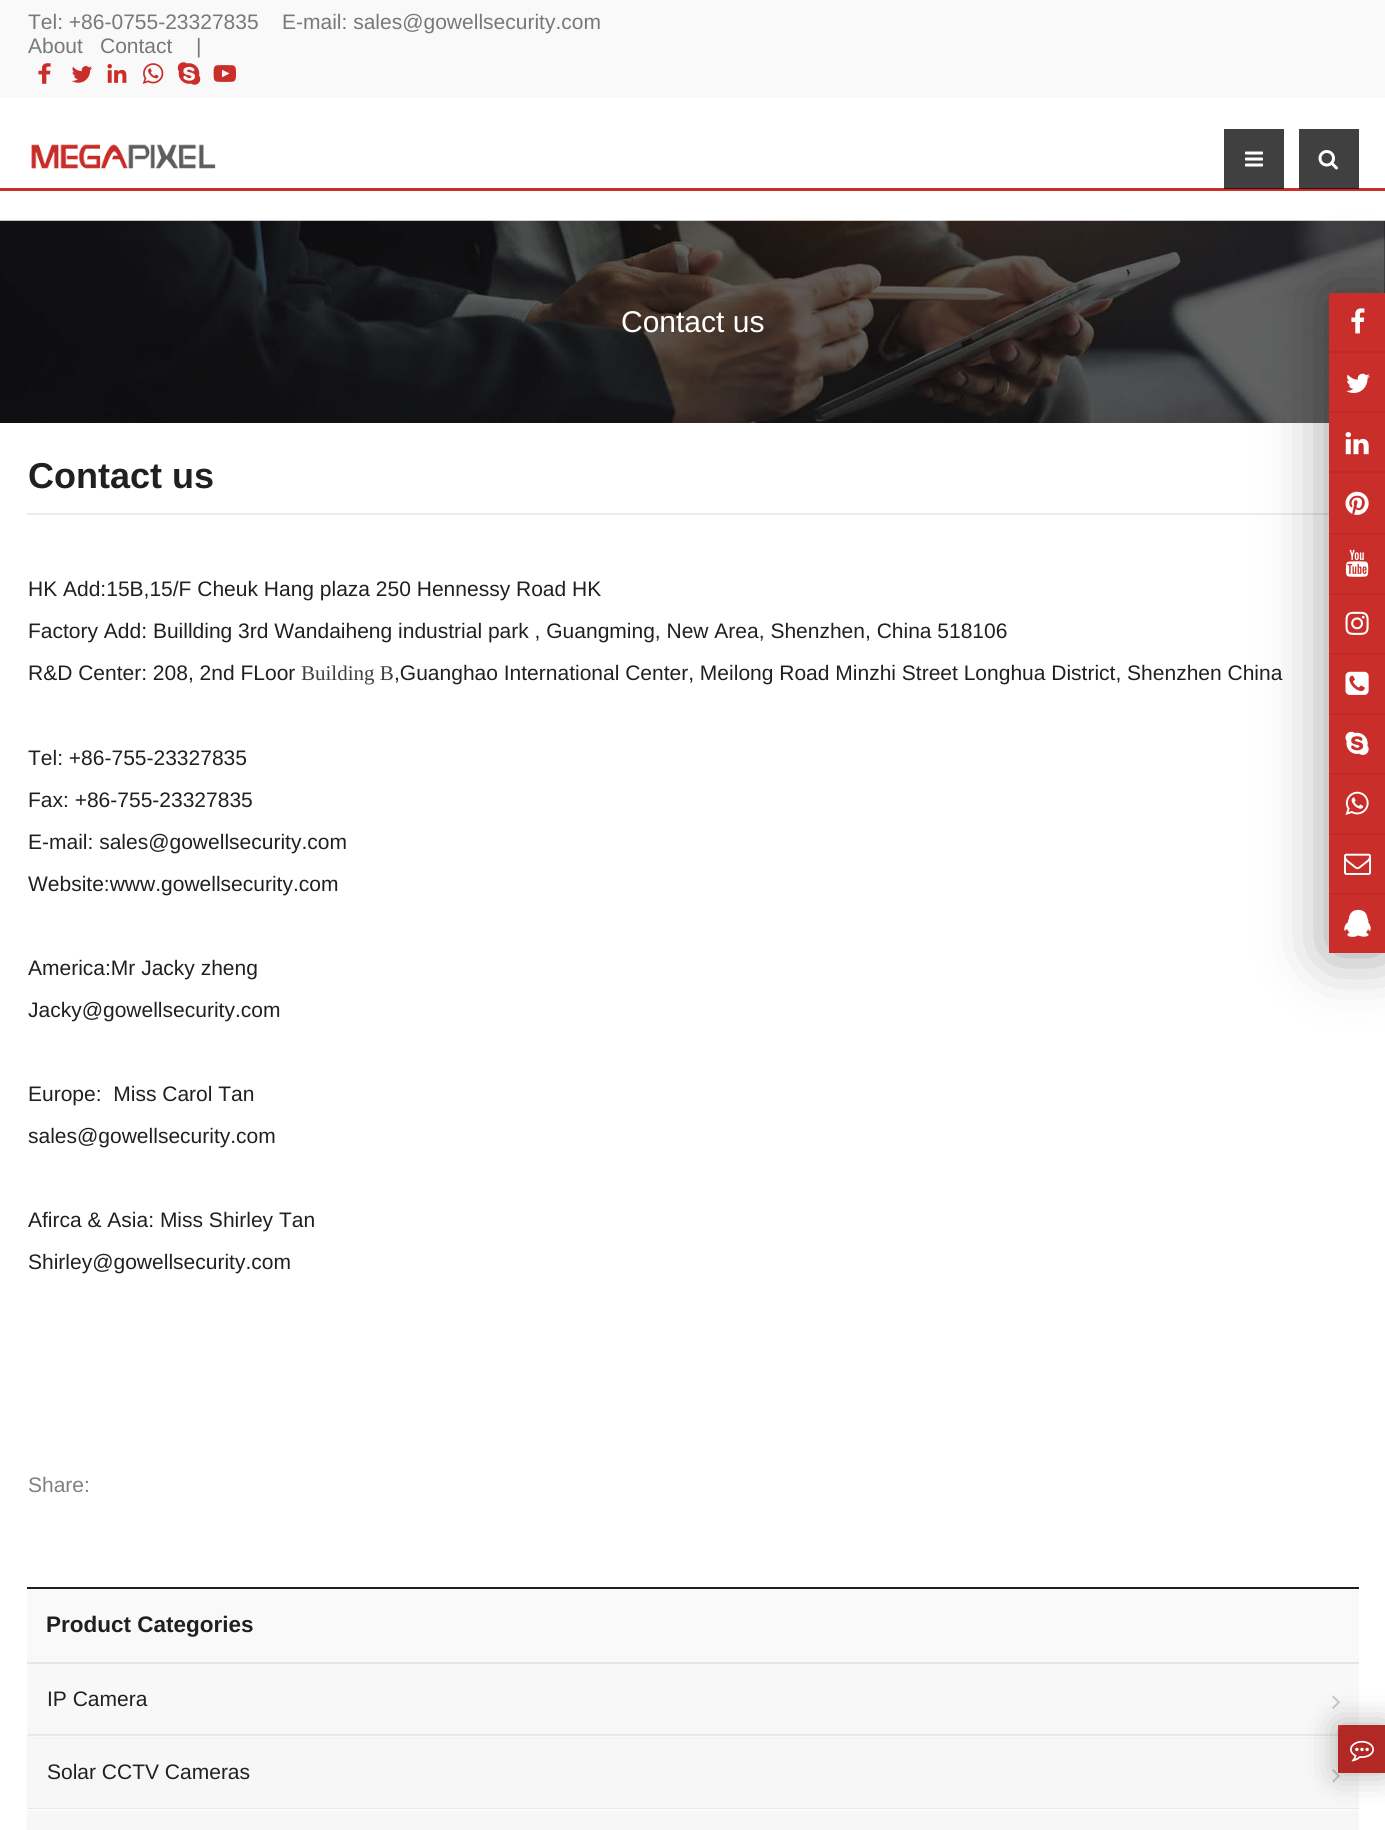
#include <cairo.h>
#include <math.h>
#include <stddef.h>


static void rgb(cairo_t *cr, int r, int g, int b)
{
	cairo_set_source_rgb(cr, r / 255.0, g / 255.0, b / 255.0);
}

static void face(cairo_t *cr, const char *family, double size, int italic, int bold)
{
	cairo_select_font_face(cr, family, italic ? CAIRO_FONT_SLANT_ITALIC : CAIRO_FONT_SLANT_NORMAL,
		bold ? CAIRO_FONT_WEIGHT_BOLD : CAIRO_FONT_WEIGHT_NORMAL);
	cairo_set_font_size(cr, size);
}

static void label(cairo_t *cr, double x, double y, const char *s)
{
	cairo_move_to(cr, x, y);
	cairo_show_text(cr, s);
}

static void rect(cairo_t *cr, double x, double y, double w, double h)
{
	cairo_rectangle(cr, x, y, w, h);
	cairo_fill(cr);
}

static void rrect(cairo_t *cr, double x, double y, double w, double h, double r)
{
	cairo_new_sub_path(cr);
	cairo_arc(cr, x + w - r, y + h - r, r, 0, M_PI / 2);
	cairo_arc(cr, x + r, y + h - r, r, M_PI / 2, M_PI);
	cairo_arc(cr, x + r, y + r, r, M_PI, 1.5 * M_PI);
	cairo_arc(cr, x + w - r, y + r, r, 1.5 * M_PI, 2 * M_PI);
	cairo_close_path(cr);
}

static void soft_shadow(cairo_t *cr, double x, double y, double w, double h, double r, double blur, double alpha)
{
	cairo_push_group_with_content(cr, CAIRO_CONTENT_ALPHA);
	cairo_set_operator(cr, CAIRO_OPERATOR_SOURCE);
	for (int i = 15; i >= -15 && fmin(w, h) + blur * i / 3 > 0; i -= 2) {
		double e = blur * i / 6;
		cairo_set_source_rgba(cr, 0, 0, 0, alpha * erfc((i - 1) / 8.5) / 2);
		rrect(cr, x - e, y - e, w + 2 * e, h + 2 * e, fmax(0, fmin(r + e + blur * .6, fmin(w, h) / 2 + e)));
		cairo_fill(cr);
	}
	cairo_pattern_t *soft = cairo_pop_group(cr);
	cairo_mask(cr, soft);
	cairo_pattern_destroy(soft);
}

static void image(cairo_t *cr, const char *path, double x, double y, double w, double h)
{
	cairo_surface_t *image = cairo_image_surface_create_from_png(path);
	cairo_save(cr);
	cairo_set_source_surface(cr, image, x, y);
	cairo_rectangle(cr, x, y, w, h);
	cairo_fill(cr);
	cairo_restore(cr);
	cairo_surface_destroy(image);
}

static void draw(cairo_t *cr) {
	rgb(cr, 255, 255, 255);
	cairo_paint(cr);
	rgb(cr, 247, 247, 247);
	rect(cr, 27, 1738, 1332, 71);
	rgb(cr, 64, 64, 64);
	rect(cr, 1299, 129, 60, 59);
	rect(cr, 1224, 129, 60, 59);
	rgb(cr, 249, 249, 249);
	rect(cr, 0, 0, 1385, 98);
	face(cr, "Liberation Sans", 21, 0, 0);
	rgb(cr, 120, 120, 120);
	label(cr, 28, 29, "Tel: +86-0755-23327835");
	label(cr, 282, 29, "E-mail: sales@gowellsecurity.com");
	label(cr, 28, 53, "About");
	label(cr, 100, 53, "Contact");
	label(cr, 196, 53, "|");
	image(cr, "image0.png", 38, 63, 13, 21);
	image(cr, "image1.png", 71, 66, 22, 17);
	image(cr, "image2.png", 107, 64, 20, 19);
	image(cr, "image3.png", 142, 63, 22, 21);
	image(cr, "image4.png", 177, 62, 24, 23);
	image(cr, "image5.png", 213, 65, 24, 17);
	image(cr, "image6.png", 31, 144, 185, 25);
	image(cr, "image7.png", 1245, 151, 18, 16);
	image(cr, "image8.png", 1318, 150, 20, 20);
	rgb(cr, 201, 46, 42);
	rect(cr, 0, 188, 1385, 3);
	rgb(cr, 50, 12, 11);
	rect(cr, 1299, 188, 60, 1);
	rect(cr, 1224, 188, 60, 1);
	image(cr, "image9.png", 0, 220, 1385, 203);
	face(cr, "Liberation Sans", 30, 0, 0);
	rgb(cr, 255, 255, 255);
	label(cr, 621, 332, "Contact us");
	rgb(cr, 235, 235, 235);
	rect(cr, 27, 513, 1302, 2);
	rgb(cr, 0, 0, 0);
	soft_shadow(cr, 1329, 293, 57, 660, 0, 31.5, 0.4);
	rgb(cr, 201, 46, 42);
	rect(cr, 1329, 293, 56, 660);
	rgb(cr, 191, 44, 40);
	rect(cr, 1329, 351, 56, 2);
	image(cr, "image10.png", 1351, 308, 14, 26);
	rect(cr, 1329, 411, 56, 2);
	image(cr, "image11.png", 1346, 373, 24, 20);
	rect(cr, 1329, 471, 56, 2);
	image(cr, "image12.png", 1345, 432, 24, 23);
	rect(cr, 1329, 533, 56, 2);
	image(cr, "image13.png", 1345, 491, 24, 24);
	rect(cr, 1329, 593, 56, 2);
	image(cr, "image14.png", 1345, 549, 24, 28);
	rect(cr, 1329, 653, 56, 2);
	image(cr, "image15.png", 1345, 611, 24, 24);
	rect(cr, 1329, 713, 56, 2);
	image(cr, "image16.png", 1345, 671, 24, 24);
	rect(cr, 1329, 773, 56, 2);
	image(cr, "image17.png", 1345, 731, 24, 24);
	rect(cr, 1329, 833, 56, 2);
	image(cr, "image18.png", 1345, 791, 24, 24);
	rect(cr, 1329, 893, 56, 2);
	image(cr, "image19.png", 1344, 853, 27, 22);
	image(cr, "image20.png", 1344, 909, 27, 28);
	face(cr, "Liberation Sans", 36, 0, 1);
	rgb(cr, 32, 32, 32);
	label(cr, 28, 488, "Contact us");
	face(cr, "Liberation Sans", 21, 0, 0);
	label(cr, 28, 596, "HK Add:15B,15/F Cheuk Hang plaza 250 Hennessy Road HK");
	label(cr, 28, 638, "Factory Add: Buillding 3rd Wandaiheng industrial park , Guangming, New Area, Shenzhen, China 518106");
	label(cr, 28, 680, "R&D Center: 208, 2nd FLoor");
	face(cr, "Liberation Serif", 21, 0, 0);
	rgb(cr, 63, 63, 63);
	label(cr, 301, 680, "Building B");
	face(cr, "Liberation Sans", 21, 0, 0);
	rgb(cr, 32, 32, 32);
	label(cr, 394, 680, ",Guanghao International Center, Meilong Road Minzhi Street Longhua District, Shenzhen China");
	label(cr, 28, 765, "Tel: +86-755-23327835");
	label(cr, 28, 807, "Fax: +86-755-23327835");
	label(cr, 28, 849, "E-mail: sales@gowellsecurity.com");
	label(cr, 28, 891, "Website:www.gowellsecurity.com");
	label(cr, 28, 975, "America:Mr Jacky zheng");
	label(cr, 28, 1017, "Jacky@gowellsecurity.com");
	label(cr, 28, 1101, "Europe:  Miss Carol Tan");
	label(cr, 28, 1143, "sales@gowellsecurity.com");
	label(cr, 28, 1227, "Afirca & Asia: Miss Shirley Tan");
	label(cr, 28, 1269, "Shirley@gowellsecurity.com");
	rgb(cr, 128, 128, 128);
	label(cr, 28, 1492, "Share:");
	rgb(cr, 249, 249, 249);
	rect(cr, 27, 1589, 1332, 73);
	rgb(cr, 32, 32, 32);
	rect(cr, 27, 1587, 1332, 2);
	face(cr, "Liberation Sans", 22.5, 0, 1);
	label(cr, 46, 1632, "Product Categories");
	rgb(cr, 230, 230, 230);
	rect(cr, 27, 1662, 1332, 2);
	rgb(cr, 248, 248, 248);
	rect(cr, 27, 1664, 1332, 72);
	rgb(cr, 233, 233, 233);
	cairo_new_path(cr);
	cairo_move_to(cr, 1359, 1736);
	cairo_line_to(cr, 27, 1736);
	cairo_line_to(cr, 28, 1734);
	cairo_line_to(cr, 1359, 1734);
	cairo_close_path(cr);
	cairo_fill(cr);
	face(cr, "Liberation Sans", 21, 0, 0);
	rgb(cr, 32, 32, 32);
	label(cr, 47, 1706, "IP Camera");
	image(cr, "image21.png", 1332, 1695, 8, 14);
	rgb(cr, 251, 251, 251);
	rect(cr, 27, 1736, 1311, 1);
	rgb(cr, 243, 243, 243);
	rect(cr, 27, 1737, 1311, 1);
	rgb(cr, 233, 233, 233);
	cairo_new_path(cr);
	cairo_move_to(cr, 1359, 1809);
	cairo_line_to(cr, 27, 1809);
	cairo_line_to(cr, 28, 1808);
	cairo_line_to(cr, 1359, 1808);
	cairo_close_path(cr);
	cairo_fill(cr);
	rgb(cr, 32, 32, 32);
	label(cr, 47, 1779, "Solar CCTV Cameras");
	image(cr, "image22.png", 1332, 1769, 8, 14);
	rgb(cr, 251, 251, 251);
	rect(cr, 27, 1809, 1332, 2);
	rgb(cr, 247, 247, 247);
	rect(cr, 27, 1811, 1332, 19);
	rgb(cr, 0, 0, 0);
	soft_shadow(cr, 1338, 1725, 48, 48, 0, 16, 0.3);
	rgb(cr, 201, 46, 42);
	rect(cr, 1338, 1725, 8, 8);
	rgb(cr, 177, 40, 37);
	cairo_new_path(cr);
	cairo_move_to(cr, 1346, 1725);
	cairo_line_to(cr, 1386, 1725);
	cairo_line_to(cr, 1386, 1773);
	cairo_line_to(cr, 1338, 1773);
	cairo_line_to(cr, 1338, 1733);
	cairo_curve_to(cr, 1338, 1728.5, 1341.5, 1725, 1346, 1725);
	cairo_close_path(cr);
	cairo_fill(cr);
	image(cr, "image23.png", 1350, 1740, 24, 22);
}

int main(void) {
	cairo_surface_t *surface = cairo_image_surface_create(CAIRO_FORMAT_RGB24, 1385, 1830);
	cairo_t *cr = cairo_create(surface);
	cairo_font_options_t *options = cairo_font_options_create();
	cairo_font_options_set_hint_metrics(options, CAIRO_HINT_METRICS_OFF);
	cairo_font_options_set_hint_style(options, CAIRO_HINT_STYLE_NONE);
	cairo_set_font_options(cr, options);
	cairo_set_miter_limit(cr, 4);
	draw(cr);
	cairo_surface_write_to_png(surface, "render.png");
	cairo_font_options_destroy(options);
	cairo_destroy(cr);
	cairo_surface_destroy(surface);
	return 0;
}
